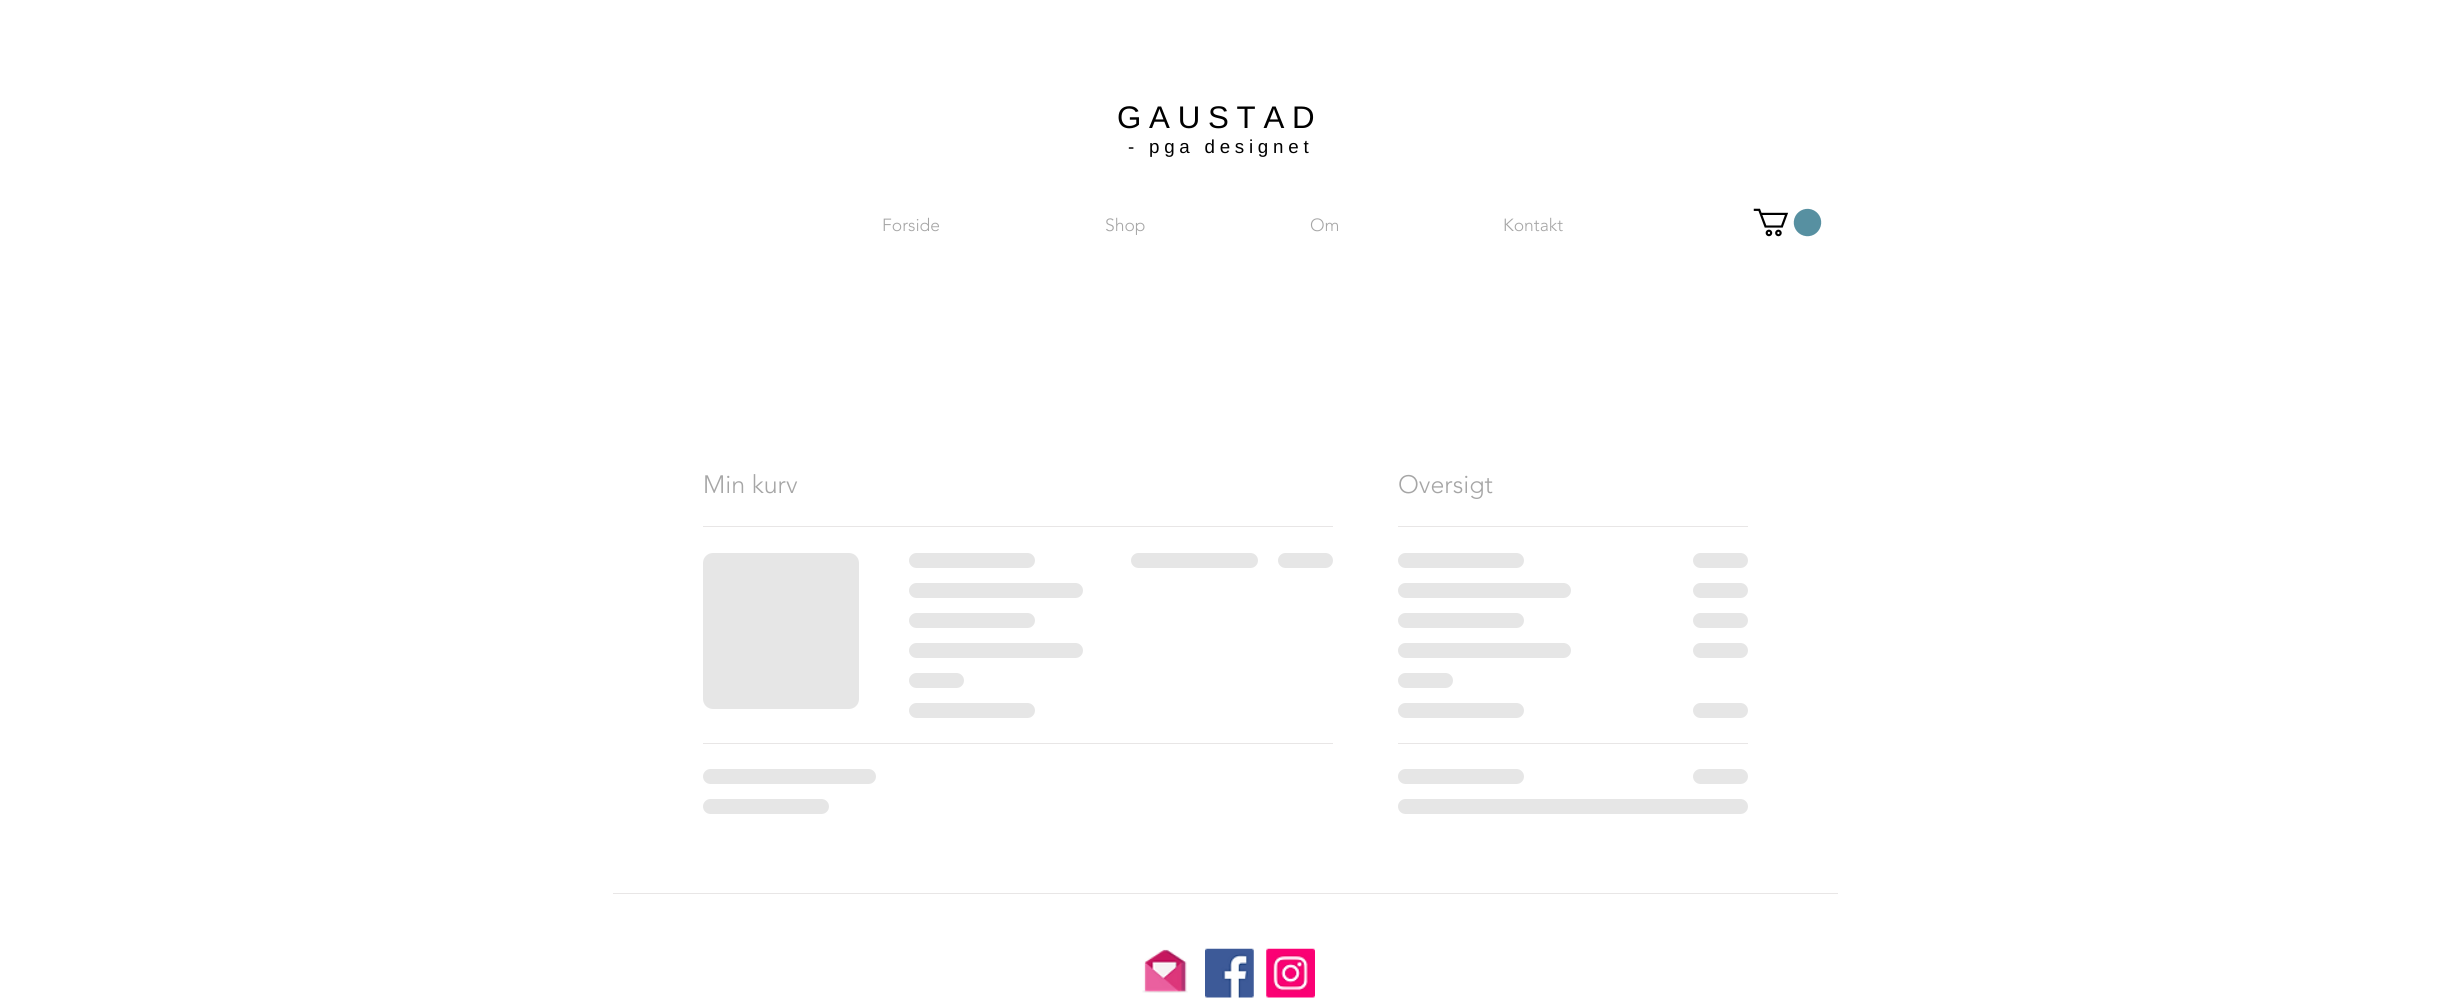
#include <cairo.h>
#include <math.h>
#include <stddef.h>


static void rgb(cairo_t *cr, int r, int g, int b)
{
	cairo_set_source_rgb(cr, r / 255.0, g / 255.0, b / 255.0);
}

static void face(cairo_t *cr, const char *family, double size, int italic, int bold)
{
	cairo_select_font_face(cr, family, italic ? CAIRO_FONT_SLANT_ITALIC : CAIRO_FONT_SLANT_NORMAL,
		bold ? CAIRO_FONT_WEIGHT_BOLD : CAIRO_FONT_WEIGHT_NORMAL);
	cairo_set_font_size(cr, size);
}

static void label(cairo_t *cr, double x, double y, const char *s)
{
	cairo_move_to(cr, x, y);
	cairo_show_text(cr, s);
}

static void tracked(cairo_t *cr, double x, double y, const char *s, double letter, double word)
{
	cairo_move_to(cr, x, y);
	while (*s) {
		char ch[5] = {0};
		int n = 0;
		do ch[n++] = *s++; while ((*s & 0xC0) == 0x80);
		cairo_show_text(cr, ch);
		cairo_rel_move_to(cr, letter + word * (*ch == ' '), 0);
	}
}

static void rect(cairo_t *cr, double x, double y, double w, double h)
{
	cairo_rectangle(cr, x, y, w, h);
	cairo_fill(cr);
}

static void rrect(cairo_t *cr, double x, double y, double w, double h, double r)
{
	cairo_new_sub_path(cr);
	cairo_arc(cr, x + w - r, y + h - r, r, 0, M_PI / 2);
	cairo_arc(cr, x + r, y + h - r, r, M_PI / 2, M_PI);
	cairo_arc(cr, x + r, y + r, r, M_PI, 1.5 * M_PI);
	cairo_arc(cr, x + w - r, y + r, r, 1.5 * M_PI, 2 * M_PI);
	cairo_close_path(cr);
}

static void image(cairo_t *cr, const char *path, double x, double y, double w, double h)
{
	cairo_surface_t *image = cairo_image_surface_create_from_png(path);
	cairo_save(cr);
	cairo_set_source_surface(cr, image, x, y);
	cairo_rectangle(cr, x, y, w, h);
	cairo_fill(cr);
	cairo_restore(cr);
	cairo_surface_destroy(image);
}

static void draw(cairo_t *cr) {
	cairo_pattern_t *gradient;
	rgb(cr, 255, 255, 255);
	cairo_paint(cr);
	face(cr, "Liberation Sans", 31.25, 0, 0);
	rgb(cr, 0, 0, 0);
	tracked(cr, 1117, 128, "GAUSTAD", 7.75, 0);
	face(cr, "Liberation Sans", 18.75, 0, 0);
	tracked(cr, 1128, 153, "- pga designet", 4.75, 0);
	face(cr, "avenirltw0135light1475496 Light", 17.5, 0, 0);
	rgb(cr, 166, 166, 166);
	label(cr, 882, 231, "Forside");
	label(cr, 1105, 231, "Shop");
	label(cr, 1310, 231, "Om");
	label(cr, 1503, 231, "Kontakt");
	image(cr, "image0.png", 1753, 208, 69, 29);
	rgb(cr, 232, 230, 230);
	rect(cr, 703, 526, 630, 1);
	face(cr, "avenirltw0135light1475496 Light", 25, 0, 0);
	rgb(cr, 166, 166, 166);
	label(cr, 703, 493, "Min kurv");
	gradient = cairo_pattern_create_linear(703, 631, 1328, 631);
	cairo_pattern_add_color_stop_rgba(gradient, 0.25, 0.902, 0.902, 0.902, 1);
	cairo_pattern_add_color_stop_rgba(gradient, 0.37, 0.8, 0.8, 0.8, 1);
	cairo_pattern_add_color_stop_rgba(gradient, 0.63, 0.902, 0.902, 0.902, 1);
	cairo_set_source(cr, gradient);
	cairo_pattern_destroy(gradient);
	rrect(cr, 703, 553, 156, 156, 10);
	cairo_fill(cr);
	gradient = cairo_pattern_create_linear(909, 560, 1414, 560);
	cairo_pattern_add_color_stop_rgba(gradient, 0.25, 0.902, 0.902, 0.902, 1);
	cairo_pattern_add_color_stop_rgba(gradient, 0.37, 0.8, 0.8, 0.8, 1);
	cairo_pattern_add_color_stop_rgba(gradient, 0.63, 0.902, 0.902, 0.902, 1);
	cairo_set_source(cr, gradient);
	cairo_pattern_destroy(gradient);
	rrect(cr, 909, 553, 126, 15, 7.5);
	cairo_fill(cr);
	gradient = cairo_pattern_create_linear(909, 590, 1604, 590);
	cairo_pattern_add_color_stop_rgba(gradient, 0.25, 0.902, 0.902, 0.902, 1);
	cairo_pattern_add_color_stop_rgba(gradient, 0.37, 0.8, 0.8, 0.8, 1);
	cairo_pattern_add_color_stop_rgba(gradient, 0.63, 0.902, 0.902, 0.902, 1);
	cairo_set_source(cr, gradient);
	cairo_pattern_destroy(gradient);
	rrect(cr, 909, 583, 174, 15, 7.5);
	cairo_fill(cr);
	gradient = cairo_pattern_create_linear(909, 620, 1414, 620);
	cairo_pattern_add_color_stop_rgba(gradient, 0.25, 0.902, 0.902, 0.902, 1);
	cairo_pattern_add_color_stop_rgba(gradient, 0.37, 0.8, 0.8, 0.8, 1);
	cairo_pattern_add_color_stop_rgba(gradient, 0.63, 0.902, 0.902, 0.902, 1);
	cairo_set_source(cr, gradient);
	cairo_pattern_destroy(gradient);
	rrect(cr, 909, 613, 126, 15, 7.5);
	cairo_fill(cr);
	gradient = cairo_pattern_create_linear(909, 650, 1604, 650);
	cairo_pattern_add_color_stop_rgba(gradient, 0.25, 0.902, 0.902, 0.902, 1);
	cairo_pattern_add_color_stop_rgba(gradient, 0.37, 0.8, 0.8, 0.8, 1);
	cairo_pattern_add_color_stop_rgba(gradient, 0.63, 0.902, 0.902, 0.902, 1);
	cairo_set_source(cr, gradient);
	cairo_pattern_destroy(gradient);
	rrect(cr, 909, 643, 174, 15, 7.5);
	cairo_fill(cr);
	gradient = cairo_pattern_create_linear(909, 680, 1129, 680);
	cairo_pattern_add_color_stop_rgba(gradient, 0.25, 0.902, 0.902, 0.902, 1);
	cairo_pattern_add_color_stop_rgba(gradient, 0.37, 0.8, 0.8, 0.8, 1);
	cairo_pattern_add_color_stop_rgba(gradient, 0.63, 0.902, 0.902, 0.902, 1);
	cairo_set_source(cr, gradient);
	cairo_pattern_destroy(gradient);
	rrect(cr, 909, 673, 55, 15, 7.5);
	cairo_fill(cr);
	gradient = cairo_pattern_create_linear(909, 710, 1414, 710);
	cairo_pattern_add_color_stop_rgba(gradient, 0.25, 0.902, 0.902, 0.902, 1);
	cairo_pattern_add_color_stop_rgba(gradient, 0.37, 0.8, 0.8, 0.8, 1);
	cairo_pattern_add_color_stop_rgba(gradient, 0.63, 0.902, 0.902, 0.902, 1);
	cairo_set_source(cr, gradient);
	cairo_pattern_destroy(gradient);
	rrect(cr, 909, 703, 126, 15, 7.5);
	cairo_fill(cr);
	gradient = cairo_pattern_create_linear(1131, 560, 1636, 560);
	cairo_pattern_add_color_stop_rgba(gradient, 0.25, 0.902, 0.902, 0.902, 1);
	cairo_pattern_add_color_stop_rgba(gradient, 0.37, 0.8, 0.8, 0.8, 1);
	cairo_pattern_add_color_stop_rgba(gradient, 0.63, 0.902, 0.902, 0.902, 1);
	cairo_set_source(cr, gradient);
	cairo_pattern_destroy(gradient);
	rrect(cr, 1131, 553, 127, 15, 7.5);
	cairo_fill(cr);
	gradient = cairo_pattern_create_linear(1278, 560, 1498, 560);
	cairo_pattern_add_color_stop_rgba(gradient, 0.25, 0.902, 0.902, 0.902, 1);
	cairo_pattern_add_color_stop_rgba(gradient, 0.37, 0.8, 0.8, 0.8, 1);
	cairo_pattern_add_color_stop_rgba(gradient, 0.63, 0.902, 0.902, 0.902, 1);
	cairo_set_source(cr, gradient);
	cairo_pattern_destroy(gradient);
	rrect(cr, 1278, 553, 55, 15, 7.5);
	cairo_fill(cr);
	rgb(cr, 232, 230, 230);
	rect(cr, 703, 743, 630, 1);
	gradient = cairo_pattern_create_linear(703, 776, 1398, 776);
	cairo_pattern_add_color_stop_rgba(gradient, 0.25, 0.902, 0.902, 0.902, 1);
	cairo_pattern_add_color_stop_rgba(gradient, 0.37, 0.8, 0.8, 0.8, 1);
	cairo_pattern_add_color_stop_rgba(gradient, 0.63, 0.902, 0.902, 0.902, 1);
	cairo_set_source(cr, gradient);
	cairo_pattern_destroy(gradient);
	rrect(cr, 703, 769, 173, 15, 7.5);
	cairo_fill(cr);
	gradient = cairo_pattern_create_linear(703, 806, 1208, 806);
	cairo_pattern_add_color_stop_rgba(gradient, 0.25, 0.902, 0.902, 0.902, 1);
	cairo_pattern_add_color_stop_rgba(gradient, 0.37, 0.8, 0.8, 0.8, 1);
	cairo_pattern_add_color_stop_rgba(gradient, 0.63, 0.902, 0.902, 0.902, 1);
	cairo_set_source(cr, gradient);
	cairo_pattern_destroy(gradient);
	rrect(cr, 703, 799, 126, 15, 7.5);
	cairo_fill(cr);
	rgb(cr, 232, 230, 230);
	rect(cr, 1398, 526, 350, 1);
	rgb(cr, 166, 166, 166);
	label(cr, 1398, 493, "Oversigt");
	gradient = cairo_pattern_create_linear(1398, 560, 1903, 560);
	cairo_pattern_add_color_stop_rgba(gradient, 0.25, 0.902, 0.902, 0.902, 1);
	cairo_pattern_add_color_stop_rgba(gradient, 0.37, 0.8, 0.8, 0.8, 1);
	cairo_pattern_add_color_stop_rgba(gradient, 0.63, 0.902, 0.902, 0.902, 1);
	cairo_set_source(cr, gradient);
	cairo_pattern_destroy(gradient);
	rrect(cr, 1398, 553, 126, 15, 7.5);
	cairo_fill(cr);
	gradient = cairo_pattern_create_linear(1693, 560, 1913, 560);
	cairo_pattern_add_color_stop_rgba(gradient, 0.25, 0.902, 0.902, 0.902, 1);
	cairo_pattern_add_color_stop_rgba(gradient, 0.37, 0.8, 0.8, 0.8, 1);
	cairo_pattern_add_color_stop_rgba(gradient, 0.63, 0.902, 0.902, 0.902, 1);
	cairo_set_source(cr, gradient);
	cairo_pattern_destroy(gradient);
	rrect(cr, 1693, 553, 55, 15, 7.5);
	cairo_fill(cr);
	gradient = cairo_pattern_create_linear(1398, 590, 2093, 590);
	cairo_pattern_add_color_stop_rgba(gradient, 0.25, 0.902, 0.902, 0.902, 1);
	cairo_pattern_add_color_stop_rgba(gradient, 0.37, 0.8, 0.8, 0.8, 1);
	cairo_pattern_add_color_stop_rgba(gradient, 0.63, 0.902, 0.902, 0.902, 1);
	cairo_set_source(cr, gradient);
	cairo_pattern_destroy(gradient);
	rrect(cr, 1398, 583, 173, 15, 7.5);
	cairo_fill(cr);
	gradient = cairo_pattern_create_linear(1693, 590, 1913, 590);
	cairo_pattern_add_color_stop_rgba(gradient, 0.25, 0.902, 0.902, 0.902, 1);
	cairo_pattern_add_color_stop_rgba(gradient, 0.37, 0.8, 0.8, 0.8, 1);
	cairo_pattern_add_color_stop_rgba(gradient, 0.63, 0.902, 0.902, 0.902, 1);
	cairo_set_source(cr, gradient);
	cairo_pattern_destroy(gradient);
	rrect(cr, 1693, 583, 55, 15, 7.5);
	cairo_fill(cr);
	gradient = cairo_pattern_create_linear(1398, 620, 1903, 620);
	cairo_pattern_add_color_stop_rgba(gradient, 0.25, 0.902, 0.902, 0.902, 1);
	cairo_pattern_add_color_stop_rgba(gradient, 0.37, 0.8, 0.8, 0.8, 1);
	cairo_pattern_add_color_stop_rgba(gradient, 0.63, 0.902, 0.902, 0.902, 1);
	cairo_set_source(cr, gradient);
	cairo_pattern_destroy(gradient);
	rrect(cr, 1398, 613, 126, 15, 7.5);
	cairo_fill(cr);
	gradient = cairo_pattern_create_linear(1693, 620, 1913, 620);
	cairo_pattern_add_color_stop_rgba(gradient, 0.25, 0.902, 0.902, 0.902, 1);
	cairo_pattern_add_color_stop_rgba(gradient, 0.37, 0.8, 0.8, 0.8, 1);
	cairo_pattern_add_color_stop_rgba(gradient, 0.63, 0.902, 0.902, 0.902, 1);
	cairo_set_source(cr, gradient);
	cairo_pattern_destroy(gradient);
	rrect(cr, 1693, 613, 55, 15, 7.5);
	cairo_fill(cr);
	gradient = cairo_pattern_create_linear(1398, 650, 2093, 650);
	cairo_pattern_add_color_stop_rgba(gradient, 0.25, 0.902, 0.902, 0.902, 1);
	cairo_pattern_add_color_stop_rgba(gradient, 0.37, 0.8, 0.8, 0.8, 1);
	cairo_pattern_add_color_stop_rgba(gradient, 0.63, 0.902, 0.902, 0.902, 1);
	cairo_set_source(cr, gradient);
	cairo_pattern_destroy(gradient);
	rrect(cr, 1398, 643, 173, 15, 7.5);
	cairo_fill(cr);
	gradient = cairo_pattern_create_linear(1693, 650, 1913, 650);
	cairo_pattern_add_color_stop_rgba(gradient, 0.25, 0.902, 0.902, 0.902, 1);
	cairo_pattern_add_color_stop_rgba(gradient, 0.37, 0.8, 0.8, 0.8, 1);
	cairo_pattern_add_color_stop_rgba(gradient, 0.63, 0.902, 0.902, 0.902, 1);
	cairo_set_source(cr, gradient);
	cairo_pattern_destroy(gradient);
	rrect(cr, 1693, 643, 55, 15, 7.5);
	cairo_fill(cr);
	gradient = cairo_pattern_create_linear(1398, 680, 1618, 680);
	cairo_pattern_add_color_stop_rgba(gradient, 0.25, 0.902, 0.902, 0.902, 1);
	cairo_pattern_add_color_stop_rgba(gradient, 0.37, 0.8, 0.8, 0.8, 1);
	cairo_pattern_add_color_stop_rgba(gradient, 0.63, 0.902, 0.902, 0.902, 1);
	cairo_set_source(cr, gradient);
	cairo_pattern_destroy(gradient);
	rrect(cr, 1398, 673, 55, 15, 7.5);
	cairo_fill(cr);
	gradient = cairo_pattern_create_linear(1398, 710, 1903, 710);
	cairo_pattern_add_color_stop_rgba(gradient, 0.25, 0.902, 0.902, 0.902, 1);
	cairo_pattern_add_color_stop_rgba(gradient, 0.37, 0.8, 0.8, 0.8, 1);
	cairo_pattern_add_color_stop_rgba(gradient, 0.63, 0.902, 0.902, 0.902, 1);
	cairo_set_source(cr, gradient);
	cairo_pattern_destroy(gradient);
	rrect(cr, 1398, 703, 126, 15, 7.5);
	cairo_fill(cr);
	gradient = cairo_pattern_create_linear(1693, 710, 1913, 710);
	cairo_pattern_add_color_stop_rgba(gradient, 0.25, 0.902, 0.902, 0.902, 1);
	cairo_pattern_add_color_stop_rgba(gradient, 0.37, 0.8, 0.8, 0.8, 1);
	cairo_pattern_add_color_stop_rgba(gradient, 0.63, 0.902, 0.902, 0.902, 1);
	cairo_set_source(cr, gradient);
	cairo_pattern_destroy(gradient);
	rrect(cr, 1693, 703, 55, 15, 7.5);
	cairo_fill(cr);
	rgb(cr, 232, 230, 230);
	rect(cr, 1398, 743, 350, 1);
	gradient = cairo_pattern_create_linear(1398, 776, 1903, 776);
	cairo_pattern_add_color_stop_rgba(gradient, 0.25, 0.902, 0.902, 0.902, 1);
	cairo_pattern_add_color_stop_rgba(gradient, 0.37, 0.8, 0.8, 0.8, 1);
	cairo_pattern_add_color_stop_rgba(gradient, 0.63, 0.902, 0.902, 0.902, 1);
	cairo_set_source(cr, gradient);
	cairo_pattern_destroy(gradient);
	rrect(cr, 1398, 769, 126, 15, 7.5);
	cairo_fill(cr);
	gradient = cairo_pattern_create_linear(1693, 776, 1913, 776);
	cairo_pattern_add_color_stop_rgba(gradient, 0.25, 0.902, 0.902, 0.902, 1);
	cairo_pattern_add_color_stop_rgba(gradient, 0.37, 0.8, 0.8, 0.8, 1);
	cairo_pattern_add_color_stop_rgba(gradient, 0.63, 0.902, 0.902, 0.902, 1);
	cairo_set_source(cr, gradient);
	cairo_pattern_destroy(gradient);
	rrect(cr, 1693, 769, 55, 15, 7.5);
	cairo_fill(cr);
	gradient = cairo_pattern_create_linear(1398, 806, 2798, 806);
	cairo_pattern_add_color_stop_rgba(gradient, 0.25, 0.902, 0.902, 0.902, 1);
	cairo_pattern_add_color_stop_rgba(gradient, 0.37, 0.8, 0.8, 0.8, 1);
	cairo_pattern_add_color_stop_rgba(gradient, 0.63, 0.902, 0.902, 0.902, 1);
	cairo_set_source(cr, gradient);
	cairo_pattern_destroy(gradient);
	rrect(cr, 1398, 799, 350, 15, 7.5);
	cairo_fill(cr);
	rgb(cr, 232, 230, 230);
	rect(cr, 613, 893, 1225, 1);
	image(cr, "image1.png", 1142, 949, 46, 44);
	image(cr, "image2.png", 1205, 948, 49, 50);
	image(cr, "image3.png", 1266, 948, 49, 50);
}

int main(void) {
	cairo_surface_t *surface = cairo_image_surface_create(CAIRO_FORMAT_RGB24, 2449, 1001);
	cairo_t *cr = cairo_create(surface);
	cairo_font_options_t *options = cairo_font_options_create();
	cairo_font_options_set_hint_metrics(options, CAIRO_HINT_METRICS_OFF);
	cairo_font_options_set_hint_style(options, CAIRO_HINT_STYLE_NONE);
	cairo_set_font_options(cr, options);
	cairo_set_miter_limit(cr, 4);
	draw(cr);
	cairo_surface_write_to_png(surface, "render.png");
	cairo_font_options_destroy(options);
	cairo_destroy(cr);
	cairo_surface_destroy(surface);
	return 0;
}
